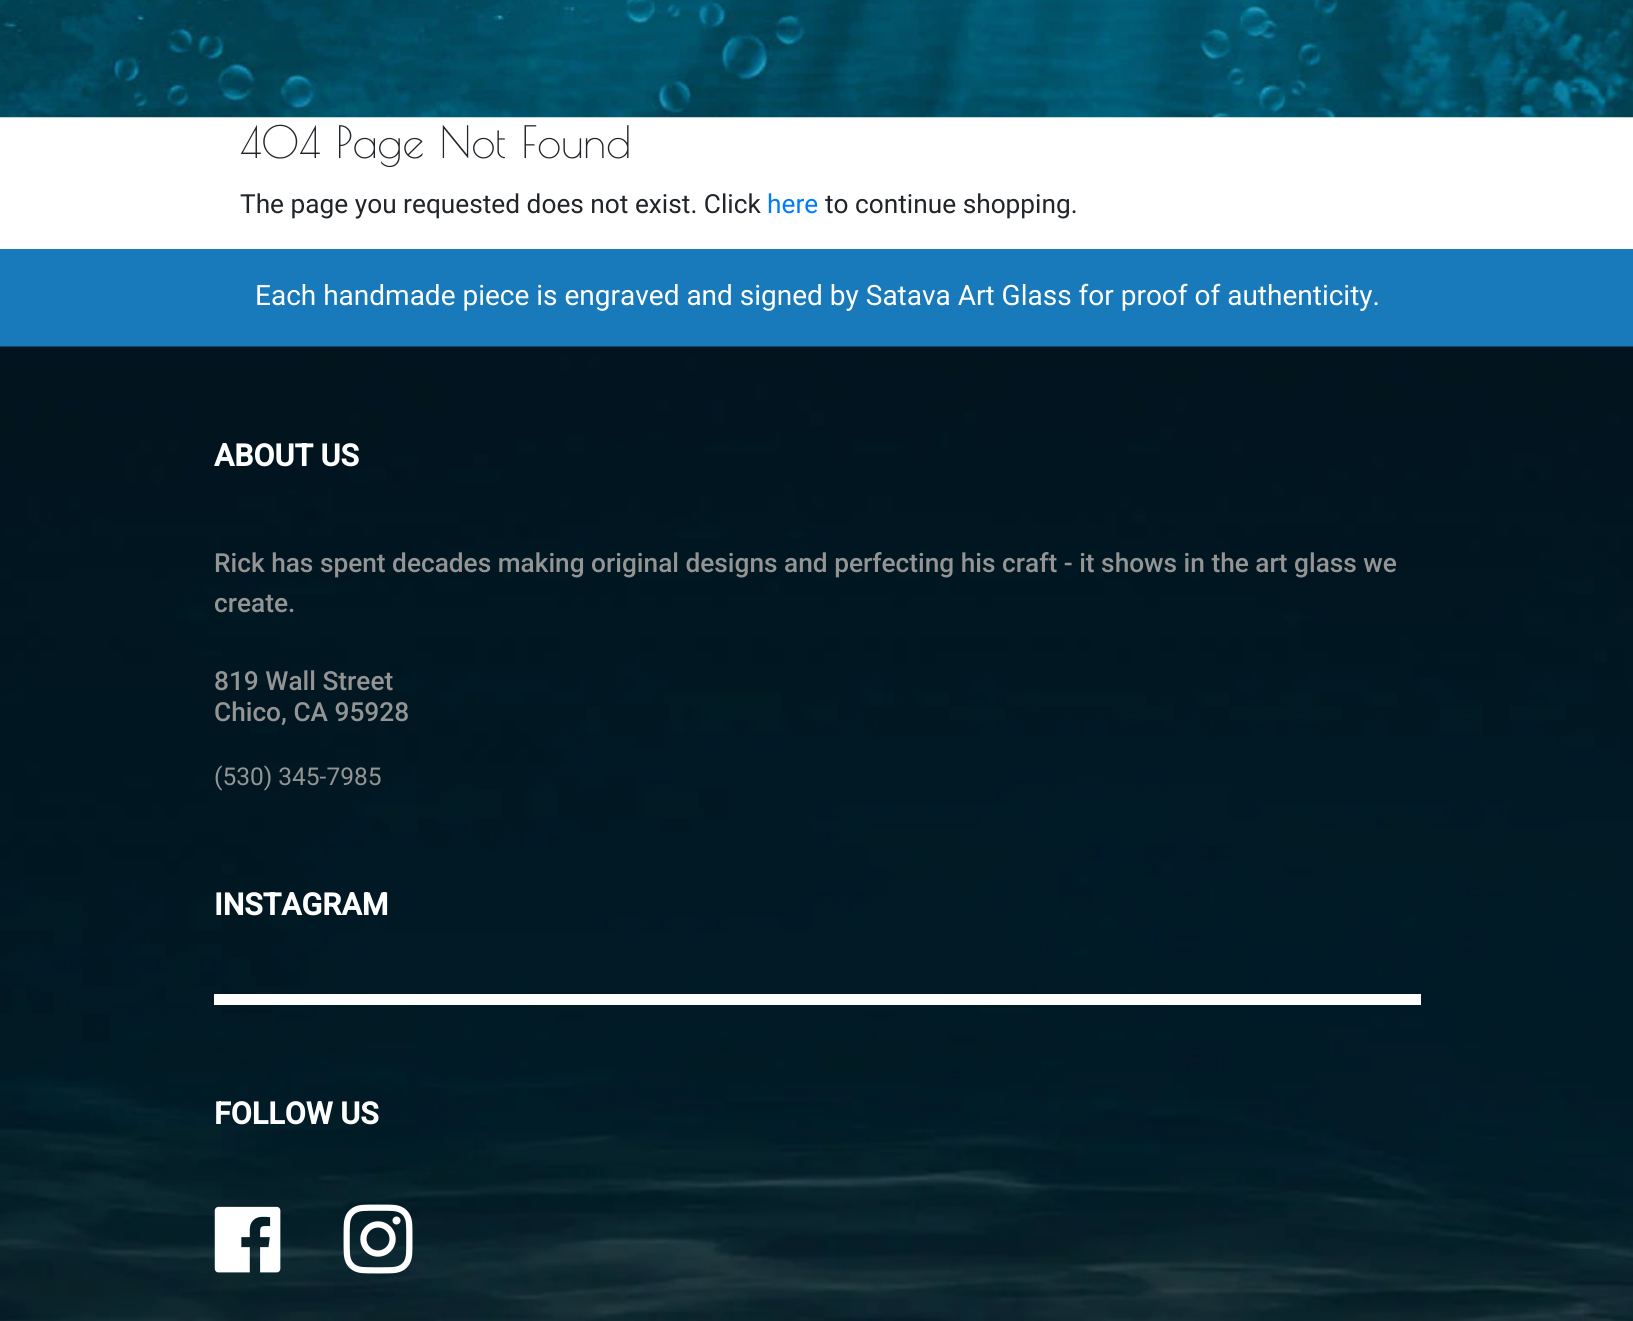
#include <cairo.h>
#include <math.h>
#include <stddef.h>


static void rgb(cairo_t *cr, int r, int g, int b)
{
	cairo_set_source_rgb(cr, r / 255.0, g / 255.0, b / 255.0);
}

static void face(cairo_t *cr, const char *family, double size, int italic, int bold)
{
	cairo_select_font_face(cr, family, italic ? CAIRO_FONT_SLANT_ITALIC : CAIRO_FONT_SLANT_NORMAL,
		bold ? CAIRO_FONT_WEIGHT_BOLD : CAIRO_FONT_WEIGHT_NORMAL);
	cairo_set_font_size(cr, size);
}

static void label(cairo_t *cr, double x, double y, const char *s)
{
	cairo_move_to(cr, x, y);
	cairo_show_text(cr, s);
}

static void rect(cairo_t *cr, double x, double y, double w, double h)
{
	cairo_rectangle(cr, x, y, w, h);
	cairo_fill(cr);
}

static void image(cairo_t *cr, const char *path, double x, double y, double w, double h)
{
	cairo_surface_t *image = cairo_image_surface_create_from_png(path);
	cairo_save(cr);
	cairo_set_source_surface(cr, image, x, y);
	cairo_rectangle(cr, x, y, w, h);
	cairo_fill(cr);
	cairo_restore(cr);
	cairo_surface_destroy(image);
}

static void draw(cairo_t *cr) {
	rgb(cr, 255, 255, 255);
	cairo_paint(cr);
	image(cr, "image0.png", 0, 0, 1633, 118);
	face(cr, "Poiret One", 43.75, 0, 0);
	rgb(cr, 33, 37, 41);
	label(cr, 240, 158, "404 Page Not Found");
	face(cr, "Roboto", 26.25, 0, 0);
	label(cr, 240, 213, "The page you requested does not exist. Click");
	rgb(cr, 0, 123, 255);
	label(cr, 767, 213, "here");
	rgb(cr, 33, 37, 41);
	label(cr, 825, 213, "to continue shopping.");
	rgb(cr, 24, 122, 186);
	rect(cr, 0, 249, 1633, 98);
	face(cr, "Roboto", 28, 0, 0);
	rgb(cr, 255, 255, 255);
	label(cr, 255, 305, "Each handmade piece is engraved and signed by Satava Art Glass for proof of authenticity.");
	image(cr, "image1.png", 0, 346, 1633, 975);
	face(cr, "Roboto", 30.5, 0, 1);
	label(cr, 214, 466, "ABOUT US");
	face(cr, "Roboto Medium", 26.25, 0, 0);
	rgb(cr, 148, 148, 148);
	label(cr, 214, 572, "Rick has spent decades making original designs and perfecting his craft - it shows in the art glass we");
	label(cr, 214, 612, "create.");
	label(cr, 214, 690, "819 Wall Street");
	label(cr, 214, 721, "Chico, CA 95928");
	face(cr, "Roboto", 24.5, 0, 0);
	label(cr, 214, 785, "(530) 345-7985");
	face(cr, "Roboto", 30.5, 0, 1);
	rgb(cr, 255, 255, 255);
	label(cr, 214, 915, "INSTAGRAM");
	rect(cr, 214, 994, 1207, 11);
	label(cr, 214, 1124, "FOLLOW US");
	image(cr, "image2.png", 214, 1206, 67, 67);
	image(cr, "image3.png", 343, 1204, 70, 70);
}

int main(void) {
	cairo_surface_t *surface = cairo_image_surface_create(CAIRO_FORMAT_RGB24, 1633, 1321);
	cairo_t *cr = cairo_create(surface);
	cairo_font_options_t *options = cairo_font_options_create();
	cairo_font_options_set_hint_metrics(options, CAIRO_HINT_METRICS_OFF);
	cairo_font_options_set_hint_style(options, CAIRO_HINT_STYLE_NONE);
	cairo_set_font_options(cr, options);
	cairo_set_miter_limit(cr, 4);
	draw(cr);
	cairo_surface_write_to_png(surface, "render.png");
	cairo_font_options_destroy(options);
	cairo_destroy(cr);
	cairo_surface_destroy(surface);
	return 0;
}
